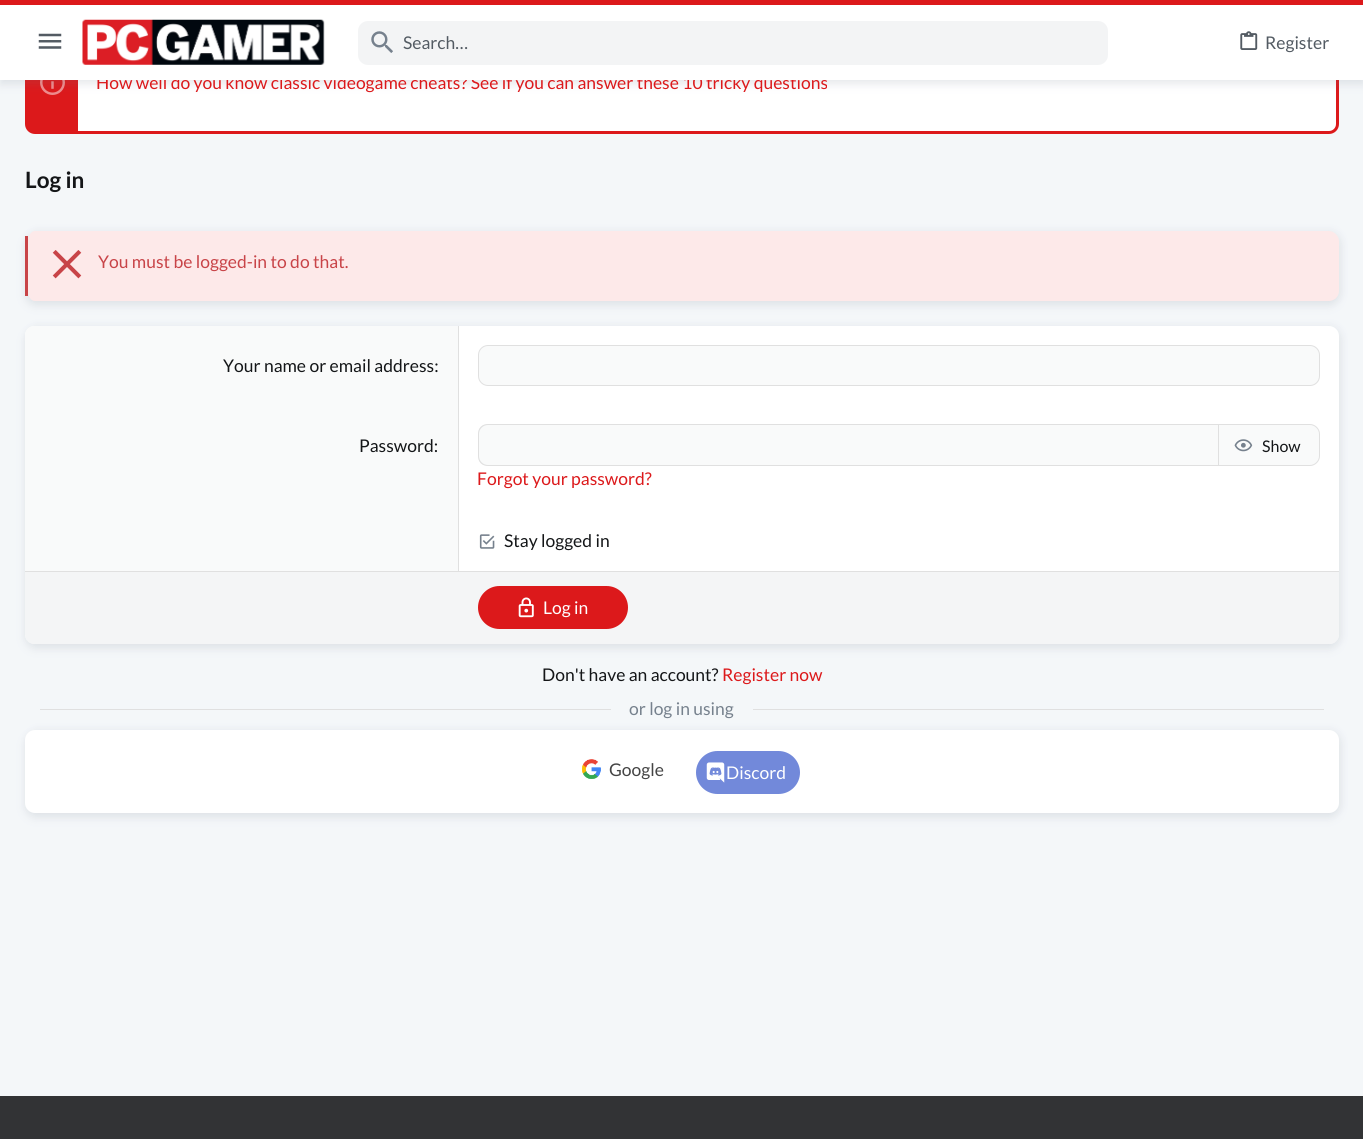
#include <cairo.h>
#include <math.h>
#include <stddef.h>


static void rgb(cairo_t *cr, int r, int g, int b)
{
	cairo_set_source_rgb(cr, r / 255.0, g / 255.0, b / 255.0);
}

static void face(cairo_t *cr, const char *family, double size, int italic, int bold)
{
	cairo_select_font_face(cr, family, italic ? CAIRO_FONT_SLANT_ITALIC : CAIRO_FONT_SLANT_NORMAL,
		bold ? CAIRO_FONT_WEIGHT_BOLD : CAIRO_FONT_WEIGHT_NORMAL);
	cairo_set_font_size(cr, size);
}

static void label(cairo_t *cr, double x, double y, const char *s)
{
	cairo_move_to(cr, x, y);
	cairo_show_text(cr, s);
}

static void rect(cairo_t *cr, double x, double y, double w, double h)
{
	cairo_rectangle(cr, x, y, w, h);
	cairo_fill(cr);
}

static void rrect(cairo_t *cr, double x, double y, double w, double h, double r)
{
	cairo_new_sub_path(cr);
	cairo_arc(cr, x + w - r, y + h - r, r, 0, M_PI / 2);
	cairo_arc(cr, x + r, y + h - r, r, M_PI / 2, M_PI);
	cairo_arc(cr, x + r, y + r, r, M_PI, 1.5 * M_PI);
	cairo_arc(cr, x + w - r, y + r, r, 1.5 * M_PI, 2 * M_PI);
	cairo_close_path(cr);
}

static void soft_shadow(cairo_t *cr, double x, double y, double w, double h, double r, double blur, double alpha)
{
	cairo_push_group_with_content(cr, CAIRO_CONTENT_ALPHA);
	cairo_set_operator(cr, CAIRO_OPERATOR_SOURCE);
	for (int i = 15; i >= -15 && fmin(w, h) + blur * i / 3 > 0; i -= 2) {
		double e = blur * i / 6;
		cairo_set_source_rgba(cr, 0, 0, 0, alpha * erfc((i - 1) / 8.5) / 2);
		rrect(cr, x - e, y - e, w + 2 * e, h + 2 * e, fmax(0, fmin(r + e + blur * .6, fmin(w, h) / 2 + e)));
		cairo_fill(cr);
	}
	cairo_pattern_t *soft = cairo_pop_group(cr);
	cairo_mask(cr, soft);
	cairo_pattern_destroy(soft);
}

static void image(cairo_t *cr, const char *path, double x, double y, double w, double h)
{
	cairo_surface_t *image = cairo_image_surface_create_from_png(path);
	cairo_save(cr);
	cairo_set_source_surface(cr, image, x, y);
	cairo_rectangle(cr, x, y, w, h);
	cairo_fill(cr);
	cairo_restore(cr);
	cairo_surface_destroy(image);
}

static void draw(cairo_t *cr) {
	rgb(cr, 244, 247, 249);
	cairo_paint(cr);
	rgb(cr, 255, 255, 255);
	rrect(cr, 26.5, 32.5, 1311, 100, 8.5);
	cairo_fill_preserve(cr);
	rgb(cr, 220, 25, 27);
	cairo_set_line_width(cr, 3);
	cairo_stroke(cr);
	rect(cr, 28, 80, 50, 51);
	image(cr, "image4.png", 40, 80, 25, 15);
	rgb(cr, 107, 119, 128);
	soft_shadow(cr, 3, 0, 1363, 80, 0, 5, 0.08);
	soft_shadow(cr, 0, 5, 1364, 80, 0, 5, 0.12);
	face(cr, "Lato", 17.5, 0, 0);
	rgb(cr, 220, 25, 27);
	label(cr, 96, 89, "How well do you know classic videogame cheats? See if you can answer these 10 tricky questions");
	rgb(cr, 255, 255, 255);
	rect(cr, 0, 5, 1363, 75);
	rgb(cr, 220, 25, 27);
	rect(cr, 0, 0, 1363, 5);
	image(cr, "image0.png", 38, 33, 24, 16);
	image(cr, "image1.png", 82, 19, 243, 46);
	rgb(cr, 243, 244, 245);
	rrect(cr, 358, 21, 750, 44, 10);
	cairo_fill(cr);
	image(cr, "image2.png", 371, 31, 22, 22);
	rgb(cr, 83, 91, 99);
	label(cr, 403, 49, "Search…");
	image(cr, "image3.png", 1240, 31, 18, 19);
	label(cr, 1265, 49, "Register");
	face(cr, "Lato", 22.5, 0, 1);
	rgb(cr, 20, 22, 24);
	label(cr, 25, 188, "Log in");
	rgb(cr, 107, 119, 128);
	soft_shadow(cr, 28, 231, 1313, 70, 10, 5, 0.08);
	soft_shadow(cr, 25, 236, 1314, 70, 10, 5, 0.12);
	rgb(cr, 253, 233, 233);
	cairo_new_path(cr);
	cairo_move_to(cr, 35, 231);
	cairo_line_to(cr, 1329, 231);
	cairo_curve_to(cr, 1334, 231, 1339, 236, 1339, 241);
	cairo_line_to(cr, 1339, 291);
	cairo_curve_to(cr, 1339, 297, 1334, 301, 1329, 301);
	cairo_line_to(cr, 35, 301);
	cairo_curve_to(cr, 31, 301, 28, 297, 28, 291);
	cairo_line_to(cr, 28, 241);
	cairo_curve_to(cr, 28, 236, 31, 231, 35, 231);
	cairo_close_path(cr);
	cairo_fill(cr);
	rgb(cr, 200, 68, 72);
	rect(cr, 25, 236, 3, 60);
	image(cr, "image5.png", 52, 250, 30, 29);
	face(cr, "Lato", 17.5, 0, 0);
	label(cr, 98, 268, "You must be logged-in to do that.");
	rgb(cr, 107, 119, 128);
	soft_shadow(cr, 28, 326, 1313, 318, 10, 5, 0.08);
	soft_shadow(cr, 25, 331, 1314, 318, 10, 5, 0.12);
	rgb(cr, 255, 255, 255);
	rrect(cr, 25, 326, 1314, 318, 10);
	cairo_fill(cr);
	rgb(cr, 249, 250, 250);
	cairo_new_path(cr);
	cairo_move_to(cr, 34, 326);
	cairo_line_to(cr, 459, 326);
	cairo_line_to(cr, 459, 405);
	cairo_line_to(cr, 25, 405);
	cairo_line_to(cr, 25, 335);
	cairo_curve_to(cr, 25, 330, 29, 326, 34, 326);
	cairo_close_path(cr);
	cairo_fill(cr);
	rgb(cr, 224, 224, 224);
	rect(cr, 458, 326, 1, 245);
	rgb(cr, 20, 22, 24);
	label(cr, 223, 372, "Your name or email address:");
	rgb(cr, 249, 250, 250);
	rrect(cr, 478.5, 345.5, 841, 40, 9.5);
	cairo_fill_preserve(cr);
	rgb(cr, 224, 224, 224);
	cairo_set_line_width(cr, 1);
	cairo_stroke(cr);
	rgb(cr, 249, 250, 250);
	rect(cr, 25, 405, 433, 166);
	rgb(cr, 20, 22, 24);
	label(cr, 359, 452, "Password:");
	rgb(cr, 249, 250, 250);
	cairo_new_path(cr);
	cairo_move_to(cr, 488, 424);
	cairo_line_to(cr, 1218, 424);
	cairo_line_to(cr, 1218, 466);
	cairo_line_to(cr, 488, 466);
	cairo_curve_to(cr, 482.5, 466, 478, 461.5, 478, 456);
	cairo_line_to(cr, 478, 434);
	cairo_curve_to(cr, 478, 428.5, 482.5, 424, 488, 424);
	cairo_close_path(cr);
	cairo_fill(cr);
	rgb(cr, 224, 224, 224);
	cairo_set_fill_rule(cr, CAIRO_FILL_RULE_EVEN_ODD);
	cairo_new_path(cr);
	cairo_move_to(cr, 488, 424);
	cairo_line_to(cr, 1218, 424);
	cairo_line_to(cr, 1218, 466);
	cairo_line_to(cr, 488, 466);
	cairo_curve_to(cr, 482, 466, 478, 462, 478, 456);
	cairo_line_to(cr, 478, 434);
	cairo_curve_to(cr, 478, 428, 482, 424, 488, 424);
	cairo_close_path(cr);
	cairo_move_to(cr, 488, 425);
	cairo_line_to(cr, 1218, 425);
	cairo_line_to(cr, 1218, 465);
	cairo_line_to(cr, 488, 465);
	cairo_curve_to(cr, 483, 465, 479, 461, 479, 456);
	cairo_line_to(cr, 479, 434);
	cairo_curve_to(cr, 479, 429, 483, 425, 488, 425);
	cairo_close_path(cr);
	cairo_fill(cr);
	rgb(cr, 249, 250, 250);
	cairo_new_path(cr);
	cairo_move_to(cr, 1218.5, 424.5);
	cairo_line_to(cr, 1310, 424.5);
	cairo_curve_to(cr, 1315, 424.5, 1319.5, 429, 1319.5, 434);
	cairo_line_to(cr, 1319.5, 456);
	cairo_curve_to(cr, 1319.5, 461, 1315, 465.5, 1310, 465.5);
	cairo_line_to(cr, 1218.5, 465.5);
	cairo_close_path(cr);
	cairo_fill_preserve(cr);
	rgb(cr, 224, 224, 224);
	cairo_stroke(cr);
	image(cr, "image6.png", 1234, 439, 19, 13);
	face(cr, "Lato", 16, 0, 0);
	rgb(cr, 20, 22, 24);
	label(cr, 1262, 452, "Show");
	face(cr, "Lato", 17.5, 0, 0);
	rgb(cr, 220, 25, 27);
	label(cr, 477, 485, "Forgot your password?");
	image(cr, "image7.png", 479, 534, 16, 15);
	rgb(cr, 20, 22, 24);
	label(cr, 504, 547, "Stay logged in");
	cairo_set_source_rgba(cr, 0.953, 0.957, 0.961, 0.9);
	cairo_new_path(cr);
	cairo_move_to(cr, 25, 571);
	cairo_line_to(cr, 1339, 571);
	cairo_line_to(cr, 1339, 635);
	cairo_curve_to(cr, 1339, 640, 1335, 644, 1330, 644);
	cairo_line_to(cr, 34, 644);
	cairo_curve_to(cr, 29, 644, 25, 640, 25, 635);
	cairo_close_path(cr);
	cairo_fill(cr);
	rgb(cr, 224, 224, 224);
	rect(cr, 25, 571, 1314, 1);
	rgb(cr, 220, 25, 27);
	rrect(cr, 478, 586, 150, 43, 21.5);
	cairo_fill(cr);
	image(cr, "image8.png", 518, 597, 16, 21);
	rgb(cr, 255, 255, 255);
	label(cr, 543, 614, "Log in");
	rgb(cr, 20, 22, 24);
	label(cr, 542, 681, "Don't have an account?");
	rgb(cr, 220, 25, 27);
	label(cr, 722, 681, "Register now");
	rgb(cr, 224, 224, 224);
	rect(cr, 40, 709, 571, 1);
	rgb(cr, 107, 119, 128);
	soft_shadow(cr, 28, 730, 1313, 83, 10, 5, 0.08);
	rgb(cr, 118, 129, 141);
	label(cr, 629, 715, "or log in using");
	rgb(cr, 224, 224, 224);
	rect(cr, 753, 709, 571, 1);
	rgb(cr, 107, 119, 128);
	soft_shadow(cr, 25, 735, 1314, 83, 10, 5, 0.12);
	rgb(cr, 255, 255, 255);
	rrect(cr, 25, 730, 1314, 83, 10);
	cairo_fill(cr);
	image(cr, "image9.png", 582, 759, 19, 20);
	rgb(cr, 68, 68, 68);
	label(cr, 609, 776, "Google");
	rgb(cr, 114, 137, 218);
	rrect(cr, 696, 751, 104, 43, 21.5);
	cairo_fill(cr);
	image(cr, "image10.png", 706, 762, 19, 21);
	rgb(cr, 255, 255, 255);
	label(cr, 726, 779, "Discord");
	rgb(cr, 50, 51, 53);
	rect(cr, 0, 1096, 1363, 43);
}

int main(void) {
	cairo_surface_t *surface = cairo_image_surface_create(CAIRO_FORMAT_RGB24, 1363, 1139);
	cairo_t *cr = cairo_create(surface);
	cairo_font_options_t *options = cairo_font_options_create();
	cairo_font_options_set_hint_metrics(options, CAIRO_HINT_METRICS_OFF);
	cairo_font_options_set_hint_style(options, CAIRO_HINT_STYLE_NONE);
	cairo_set_font_options(cr, options);
	cairo_set_miter_limit(cr, 4);
	draw(cr);
	cairo_surface_write_to_png(surface, "render.png");
	cairo_font_options_destroy(options);
	cairo_destroy(cr);
	cairo_surface_destroy(surface);
	return 0;
}
